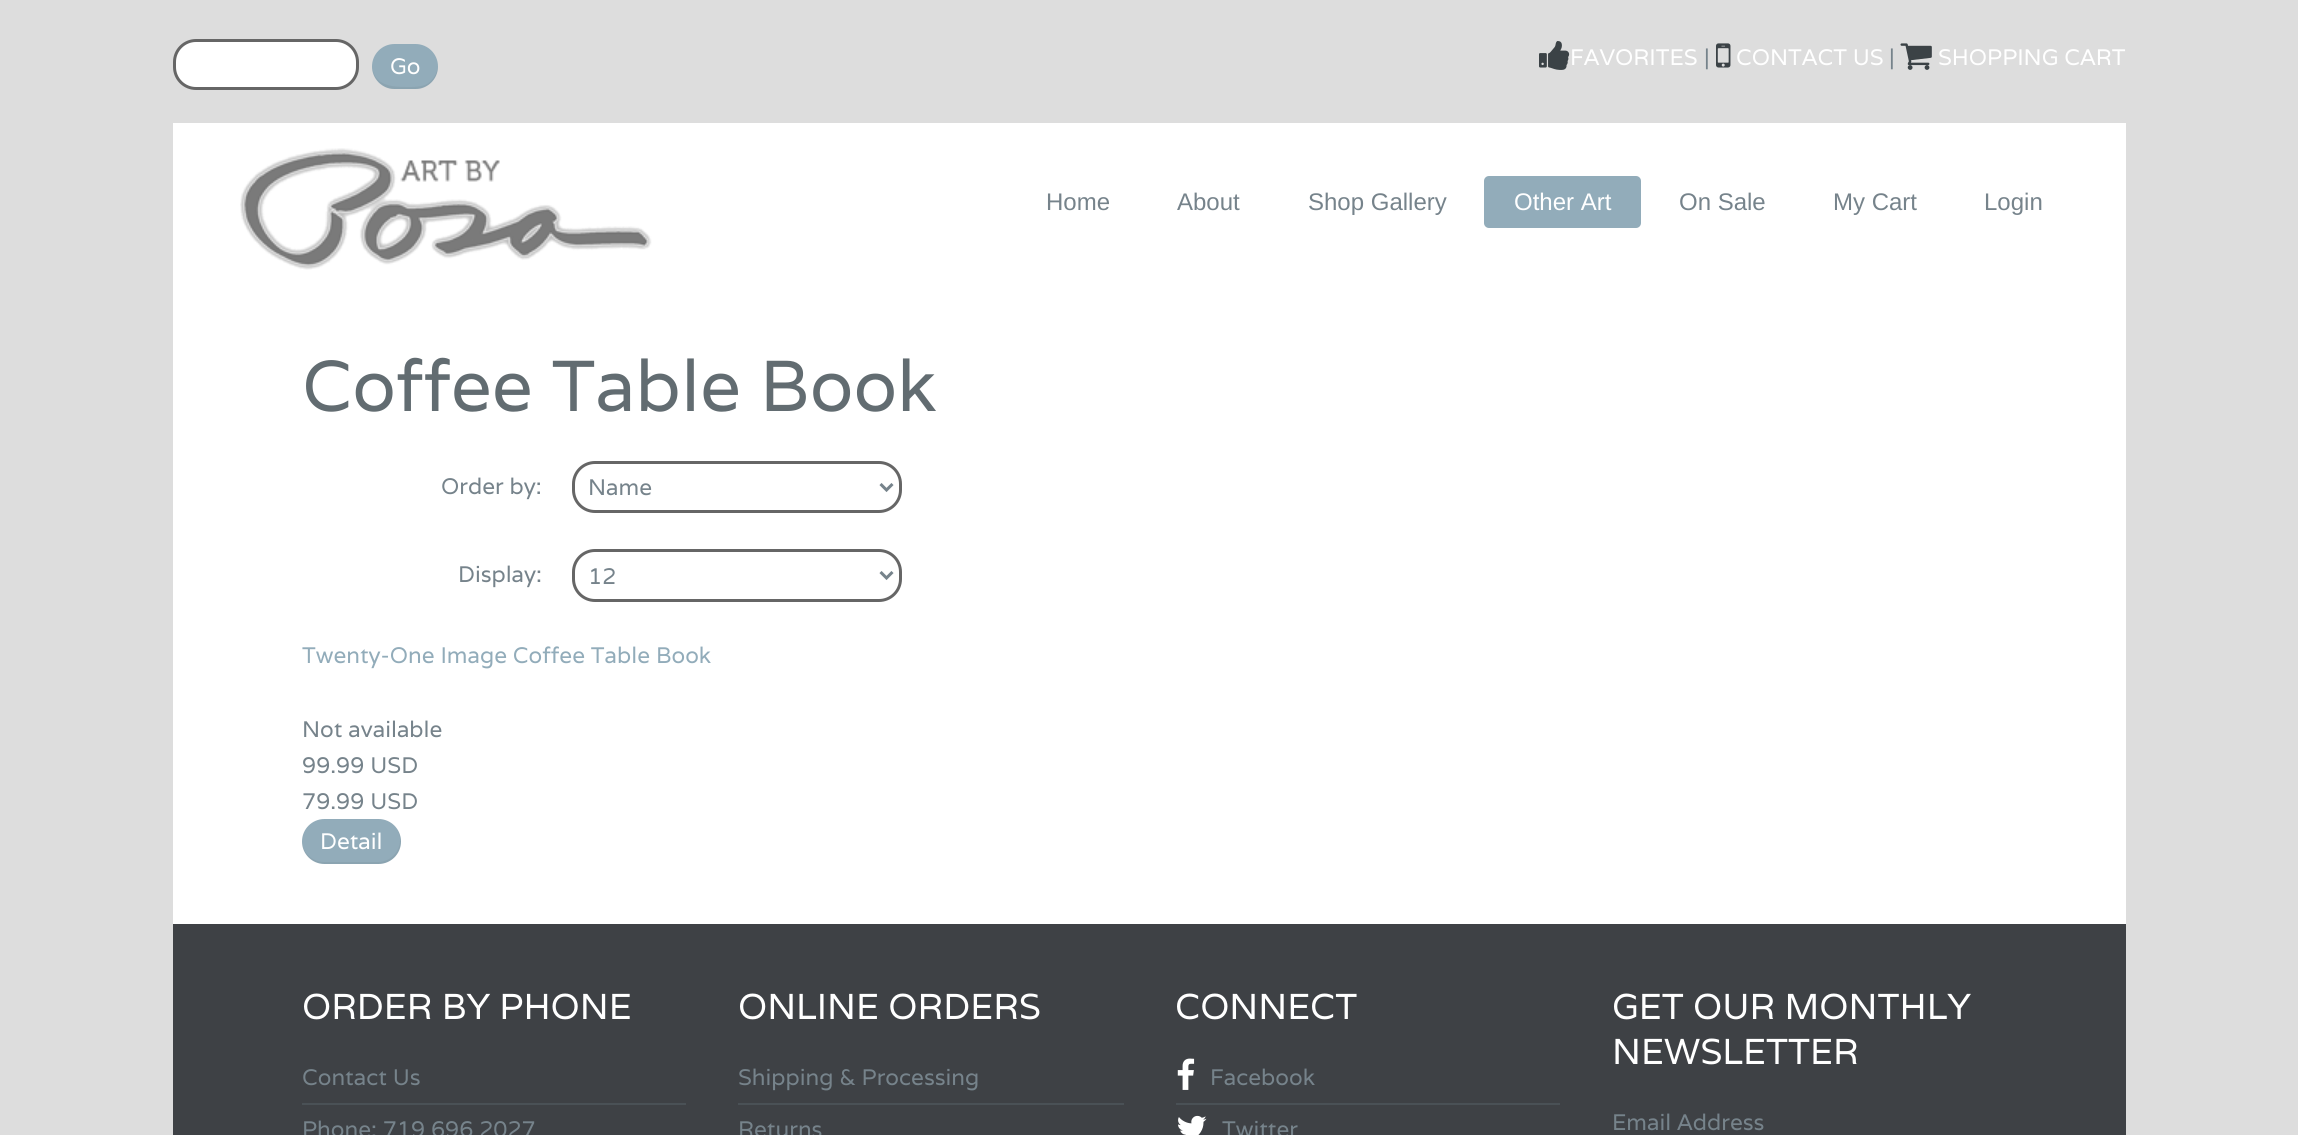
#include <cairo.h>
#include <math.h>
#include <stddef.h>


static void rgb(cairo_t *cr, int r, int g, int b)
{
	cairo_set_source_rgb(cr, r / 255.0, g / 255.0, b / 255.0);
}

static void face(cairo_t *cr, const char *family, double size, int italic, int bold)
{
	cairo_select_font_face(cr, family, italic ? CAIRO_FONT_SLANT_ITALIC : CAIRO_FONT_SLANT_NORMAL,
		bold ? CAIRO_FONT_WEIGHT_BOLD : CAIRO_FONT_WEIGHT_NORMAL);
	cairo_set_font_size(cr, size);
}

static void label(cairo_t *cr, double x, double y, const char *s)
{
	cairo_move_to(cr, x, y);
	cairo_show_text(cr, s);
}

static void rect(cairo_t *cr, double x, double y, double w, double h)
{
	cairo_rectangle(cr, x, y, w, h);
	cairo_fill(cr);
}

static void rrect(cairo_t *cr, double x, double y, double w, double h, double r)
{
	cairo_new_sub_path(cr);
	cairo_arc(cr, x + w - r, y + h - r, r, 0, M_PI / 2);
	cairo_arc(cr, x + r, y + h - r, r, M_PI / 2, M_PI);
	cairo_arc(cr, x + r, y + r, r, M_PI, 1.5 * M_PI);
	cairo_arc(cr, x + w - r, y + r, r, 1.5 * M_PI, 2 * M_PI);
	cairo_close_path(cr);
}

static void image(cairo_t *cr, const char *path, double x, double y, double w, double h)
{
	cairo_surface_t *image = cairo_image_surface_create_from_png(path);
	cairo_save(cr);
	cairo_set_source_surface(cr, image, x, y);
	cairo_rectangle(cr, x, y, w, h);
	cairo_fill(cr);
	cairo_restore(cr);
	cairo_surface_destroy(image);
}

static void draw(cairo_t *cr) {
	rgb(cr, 221, 221, 221);
	cairo_paint(cr);
	rgb(cr, 255, 255, 255);
	rrect(cr, 174.5, 40.5, 183, 48, 21.5);
	cairo_fill_preserve(cr);
	rgb(cr, 102, 102, 102);
	cairo_set_line_width(cr, 3);
	cairo_stroke(cr);
	rgb(cr, 146, 172, 186);
	rrect(cr, 372, 44, 66, 45, 22.5);
	cairo_fill(cr);
	cairo_set_source_rgba(cr, 0, 0, 0, 0.05);
	cairo_new_path(cr);
	cairo_move_to(cr, 372, 66);
	cairo_curve_to(cr, 372, 77, 380, 86, 390, 89);
	cairo_line_to(cr, 405, 89);
	cairo_line_to(cr, 420, 89);
	cairo_curve_to(cr, 431, 86, 438, 77, 438, 66);
	cairo_curve_to(cr, 437, 74, 432, 82, 425, 85);
	cairo_curve_to(cr, 419, 87, 413, 87, 408, 87);
	cairo_curve_to(cr, 392, 87, 374, 86, 372, 66);
	cairo_close_path(cr);
	cairo_fill(cr);
	face(cr, "Varela", 22.5, 0, 0);
	rgb(cr, 255, 255, 255);
	label(cr, 390, 74, "Go");
	image(cr, "image0.png", 1539, 41, 31, 29);
	label(cr, 1570, 65, "FAVORITES");
	rgb(cr, 118, 131, 139);
	label(cr, 1704, 65, "|");
	image(cr, "image1.png", 1716, 43, 15, 25);
	rgb(cr, 255, 255, 255);
	label(cr, 1736, 65, "CONTACT US");
	rgb(cr, 118, 131, 139);
	label(cr, 1889, 65, "|");
	image(cr, "image2.png", 1900, 43, 32, 27);
	rgb(cr, 255, 255, 255);
	label(cr, 1938, 65, "SHOPPING CART");
	rect(cr, 173, 123, 1953, 801);
	image(cr, "image3.png", 240, 148, 412, 122);
	face(cr, "Liberation Sans", 24, 0, 0);
	rgb(cr, 118, 131, 139);
	label(cr, 1046, 210, "Home");
	label(cr, 1177, 210, "About");
	label(cr, 1308, 210, "Shop Gallery");
	rgb(cr, 146, 172, 186);
	rrect(cr, 1484, 176, 157, 52, 5);
	cairo_fill(cr);
	rgb(cr, 255, 255, 255);
	label(cr, 1514, 210, "Other Art");
	rgb(cr, 118, 131, 139);
	label(cr, 1679, 210, "On Sale");
	label(cr, 1833, 210, "My Cart");
	label(cr, 1984, 210, "Login");
	face(cr, "Varela", 72, 0, 0);
	rgb(cr, 98, 108, 113);
	label(cr, 302, 411, "Coffee Table Book");
	face(cr, "Varela", 22.5, 0, 0);
	rgb(cr, 118, 131, 139);
	label(cr, 441, 494, "Order by:");
	rrect(cr, 573.5, 462.5, 327, 49, 21.5);
	rgb(cr, 102, 102, 102);
	cairo_stroke(cr);
	cairo_new_path(cr);
	cairo_move_to(cr, 880.5, 484);
	cairo_line_to(cr, 886.5, 490);
	cairo_line_to(cr, 892.5, 484);
	rgb(cr, 118, 131, 139);
	cairo_stroke(cr);
	label(cr, 588, 495, "Name");
	label(cr, 458, 582, "Display:");
	rrect(cr, 573.5, 550.5, 327, 50, 21.5);
	rgb(cr, 102, 102, 102);
	cairo_stroke(cr);
	cairo_new_path(cr);
	cairo_move_to(cr, 880.5, 572);
	cairo_line_to(cr, 886.5, 578);
	cairo_line_to(cr, 892.5, 572);
	rgb(cr, 118, 131, 139);
	cairo_stroke(cr);
	label(cr, 588, 584, "12");
	rgb(cr, 146, 172, 186);
	label(cr, 302, 663, "Twenty-One Image Coffee Table Book");
	rgb(cr, 118, 131, 139);
	label(cr, 302, 737, "Not available");
	label(cr, 302, 773, "99.99 USD");
	label(cr, 302, 809, "79.99 USD");
	rgb(cr, 146, 172, 186);
	rrect(cr, 302, 819, 99, 45, 22.5);
	cairo_fill(cr);
	cairo_set_source_rgba(cr, 0, 0, 0, 0.05);
	cairo_new_path(cr);
	cairo_move_to(cr, 302, 841);
	cairo_line_to(cr, 302, 842);
	cairo_curve_to(cr, 302, 854, 312, 864, 324, 864);
	cairo_line_to(cr, 378, 864);
	cairo_curve_to(cr, 391, 864, 401, 854, 401, 842);
	cairo_curve_to(cr, 401, 836, 399, 831, 395, 827);
	cairo_curve_to(cr, 398, 830, 400, 835, 400, 840);
	cairo_curve_to(cr, 400, 852, 390, 862, 378, 862);
	cairo_line_to(cr, 324, 862);
	cairo_curve_to(cr, 312, 862, 302, 852, 302, 841);
	cairo_close_path(cr);
	cairo_fill(cr);
	rgb(cr, 255, 255, 255);
	label(cr, 320, 849, "Detail");
	rgb(cr, 62, 65, 69);
	rect(cr, 173, 924, 1953, 211);
	face(cr, "Varela", 36, 0, 0);
	rgb(cr, 255, 255, 255);
	label(cr, 302, 1019, "ORDER BY PHONE");
	face(cr, "Varela", 22.5, 0, 0);
	rgb(cr, 118, 131, 139);
	label(cr, 302, 1085, "Contact Us");
	rgb(cr, 74, 81, 86);
	rect(cr, 302, 1103, 384, 2);
	rgb(cr, 118, 131, 139);
	label(cr, 302, 1137, "Phone: 719 696 2027");
	face(cr, "Varela", 36, 0, 0);
	rgb(cr, 255, 255, 255);
	label(cr, 738, 1019, "ONLINE ORDERS");
	face(cr, "Varela", 22.5, 0, 0);
	rgb(cr, 118, 131, 139);
	label(cr, 738, 1085, "Shipping & Processing");
	rgb(cr, 74, 81, 86);
	rect(cr, 738, 1103, 386, 2);
	rgb(cr, 118, 131, 139);
	label(cr, 738, 1137, "Returns");
	face(cr, "Varela", 36, 0, 0);
	rgb(cr, 255, 255, 255);
	label(cr, 1175, 1019, "CONNECT");
	image(cr, "image4.png", 1177, 1058, 18, 32);
	face(cr, "Varela", 22.5, 0, 0);
	rgb(cr, 118, 131, 139);
	label(cr, 1210, 1085, "Facebook");
	rgb(cr, 74, 81, 86);
	rect(cr, 1176, 1103, 384, 2);
	image(cr, "image5.png", 1178, 1115, 29, 20);
	rgb(cr, 118, 131, 139);
	label(cr, 1222, 1137, "Twitter");
	face(cr, "Varela", 36, 0, 0);
	rgb(cr, 255, 255, 255);
	label(cr, 1612, 1019, "GET OUR MONTHLY");
	label(cr, 1612, 1064, "NEWSLETTER");
	face(cr, "Varela", 22.5, 0, 0);
	rgb(cr, 118, 131, 139);
	label(cr, 1612, 1130, "Email Address");
}

int main(void) {
	cairo_surface_t *surface = cairo_image_surface_create(CAIRO_FORMAT_RGB24, 2298, 1135);
	cairo_t *cr = cairo_create(surface);
	cairo_font_options_t *options = cairo_font_options_create();
	cairo_font_options_set_hint_metrics(options, CAIRO_HINT_METRICS_OFF);
	cairo_font_options_set_hint_style(options, CAIRO_HINT_STYLE_NONE);
	cairo_set_font_options(cr, options);
	cairo_set_miter_limit(cr, 4);
	draw(cr);
	cairo_surface_write_to_png(surface, "render.png");
	cairo_font_options_destroy(options);
	cairo_destroy(cr);
	cairo_surface_destroy(surface);
	return 0;
}
